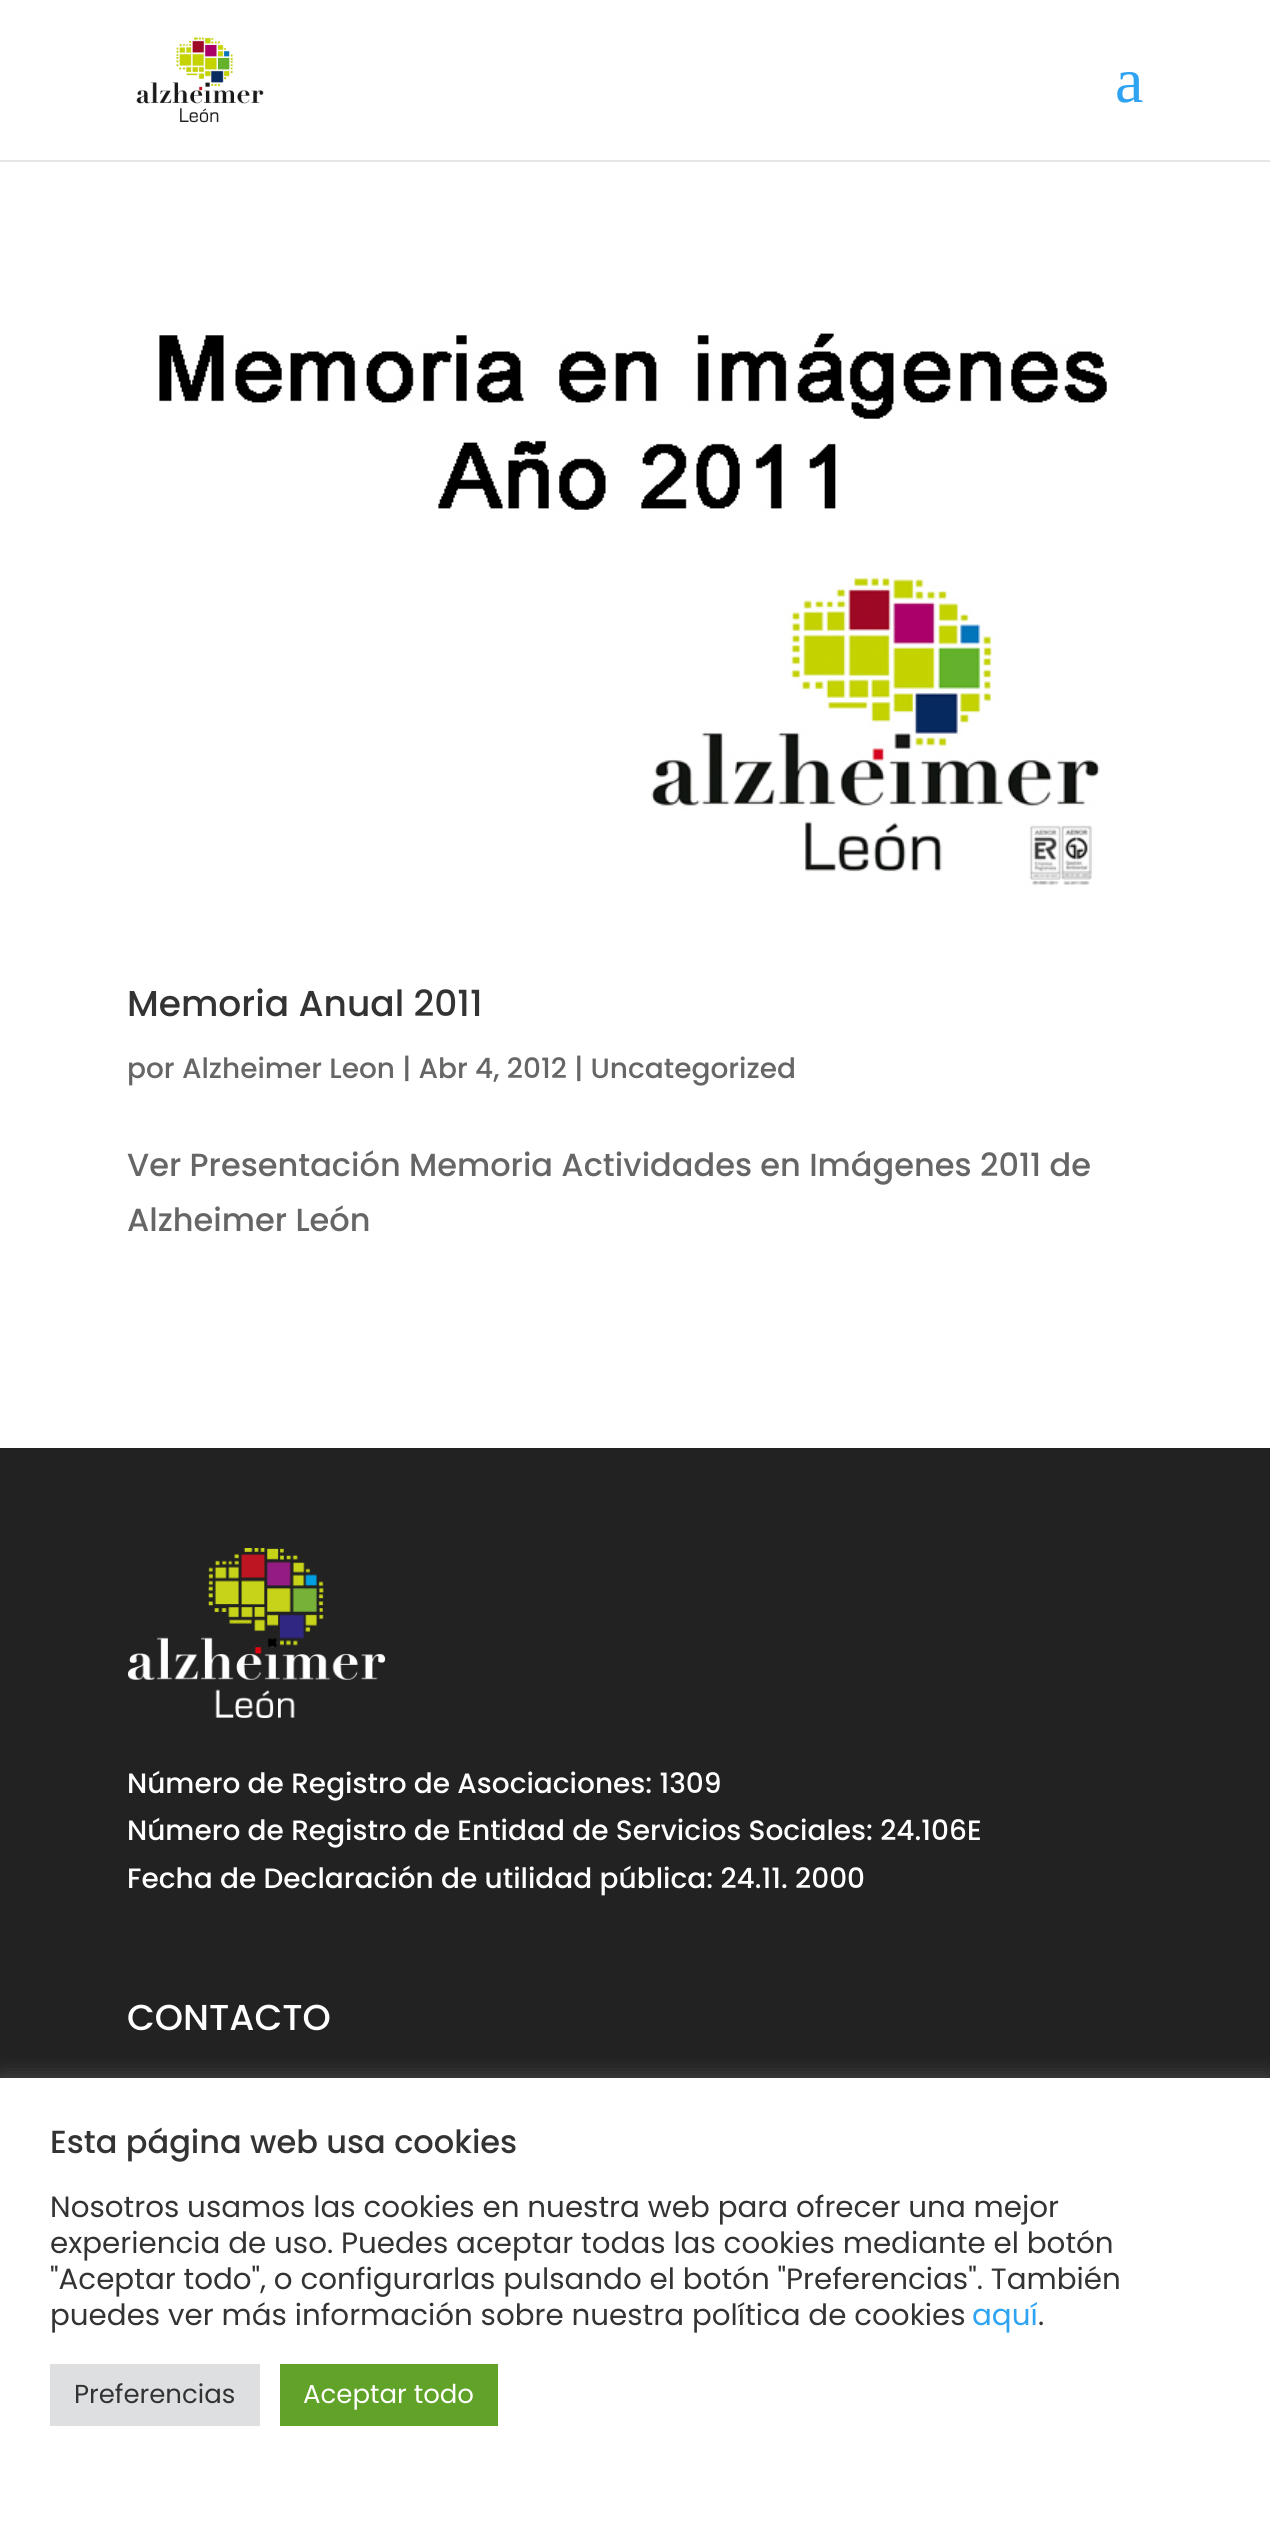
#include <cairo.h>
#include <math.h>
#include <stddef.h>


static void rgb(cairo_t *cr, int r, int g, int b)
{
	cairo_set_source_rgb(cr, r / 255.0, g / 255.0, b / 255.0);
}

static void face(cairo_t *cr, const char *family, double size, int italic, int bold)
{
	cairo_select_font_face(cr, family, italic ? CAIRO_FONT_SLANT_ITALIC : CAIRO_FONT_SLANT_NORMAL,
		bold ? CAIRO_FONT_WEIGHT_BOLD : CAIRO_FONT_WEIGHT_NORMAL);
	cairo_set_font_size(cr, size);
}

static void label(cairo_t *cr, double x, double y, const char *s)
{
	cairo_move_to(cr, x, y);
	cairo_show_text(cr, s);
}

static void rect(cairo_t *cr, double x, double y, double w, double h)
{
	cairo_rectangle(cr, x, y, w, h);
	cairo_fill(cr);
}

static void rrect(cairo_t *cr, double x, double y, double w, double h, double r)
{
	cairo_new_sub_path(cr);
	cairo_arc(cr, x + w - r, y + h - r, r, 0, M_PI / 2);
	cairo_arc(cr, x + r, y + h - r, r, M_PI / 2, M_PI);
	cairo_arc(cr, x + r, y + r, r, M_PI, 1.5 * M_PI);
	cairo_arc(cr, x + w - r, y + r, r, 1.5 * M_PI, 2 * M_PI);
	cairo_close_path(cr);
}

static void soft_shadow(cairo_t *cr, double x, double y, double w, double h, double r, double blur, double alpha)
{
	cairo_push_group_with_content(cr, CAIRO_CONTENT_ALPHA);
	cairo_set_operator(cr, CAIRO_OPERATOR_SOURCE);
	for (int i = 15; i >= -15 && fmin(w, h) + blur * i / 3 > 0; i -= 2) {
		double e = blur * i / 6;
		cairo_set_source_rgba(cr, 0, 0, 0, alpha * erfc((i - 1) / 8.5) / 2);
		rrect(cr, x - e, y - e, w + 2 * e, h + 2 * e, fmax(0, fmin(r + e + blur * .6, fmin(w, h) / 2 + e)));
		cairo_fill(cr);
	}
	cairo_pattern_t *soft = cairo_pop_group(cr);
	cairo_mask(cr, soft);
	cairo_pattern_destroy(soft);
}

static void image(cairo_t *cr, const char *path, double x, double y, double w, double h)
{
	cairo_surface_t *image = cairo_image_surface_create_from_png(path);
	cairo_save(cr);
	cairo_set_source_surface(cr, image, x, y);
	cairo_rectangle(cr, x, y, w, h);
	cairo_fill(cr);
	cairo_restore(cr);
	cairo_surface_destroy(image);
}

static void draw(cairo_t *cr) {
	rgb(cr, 255, 255, 255);
	cairo_paint(cr);
	rgb(cr, 230, 230, 230);
	rect(cr, 0, 160, 1270, 2);
	image(cr, "image0.png", 136, 37, 128, 86);
	face(cr, "Liberation Serif", 64, 0, 0);
	rgb(cr, 46, 163, 242);
	label(cr, 1115, 102, "a");
	image(cr, "image1.png", 159, 333, 948, 553);
	face(cr, "Poppins Medium", 36, 0, 0);
	rgb(cr, 51, 51, 51);
	label(cr, 127, 1016, "Memoria Anual 2011");
	face(cr, "Poppins Medium", 28, 0, 0);
	rgb(cr, 102, 102, 102);
	label(cr, 127, 1078, "por Alzheimer Leon | Abr 4, 2012 | Uncategorized");
	face(cr, "Poppins Medium", 32, 0, 0);
	label(cr, 127, 1176, "Ver Presentación Memoria Actividades en Imágenes 2011 de");
	label(cr, 127, 1231, "Alzheimer León");
	rgb(cr, 34, 34, 34);
	rect(cr, 0, 1448, 1270, 630);
	image(cr, "image2.png", 128, 1548, 258, 170);
	face(cr, "Poppins Medium", 28, 0, 0);
	rgb(cr, 255, 255, 255);
	label(cr, 127, 1793, "Número de Registro de Asociaciones: 1309");
	label(cr, 127, 1840, "Número de Registro de Entidad de Servicios Sociales: 24.106E");
	label(cr, 127, 1888, "Fecha de Declaración de utilidad pública: 24.11. 2000");
	face(cr, "Poppins Medium", 36, 0, 0);
	label(cr, 127, 2030, "CONTACTO");
	rgb(cr, 172, 171, 171);
	soft_shadow(cr, 0, 2076, 1270, 464, 0, 10, 0.3);
	rgb(cr, 255, 255, 255);
	rect(cr, 0, 2078, 1270, 463);
	face(cr, "Poppins Medium", 32, 0, 0);
	rgb(cr, 51, 51, 51);
	label(cr, 50, 2153, "Esta página web usa cookies");
	face(cr, "Poppins", 29.35, 0, 0);
	label(cr, 50, 2217, "Nosotros usamos las cookies en nuestra web para ofrecer una mejor");
	label(cr, 50, 2253, "experiencia de uso. Puedes aceptar todas las cookies mediante el botón");
	label(cr, 50, 2289, "\"Aceptar todo\", o configurarlas pulsando el botón \"Preferencias\". También");
	label(cr, 50, 2325, "puedes ver más información sobre nuestra política de cookies");
	rgb(cr, 46, 163, 242);
	label(cr, 972, 2325, "aquí");
	rgb(cr, 51, 51, 51);
	label(cr, 1038, 2325, ".");
	rgb(cr, 222, 223, 224);
	rect(cr, 50, 2364, 210, 62);
	face(cr, "Poppins", 26, 0, 0);
	rgb(cr, 51, 51, 51);
	label(cr, 74, 2403, "Preferencias");
	rgb(cr, 97, 162, 41);
	rect(cr, 280, 2364, 218, 62);
	rgb(cr, 255, 255, 255);
	label(cr, 303, 2403, "Aceptar todo");
}

int main(void) {
	cairo_surface_t *surface = cairo_image_surface_create(CAIRO_FORMAT_RGB24, 1270, 2541);
	cairo_t *cr = cairo_create(surface);
	cairo_font_options_t *options = cairo_font_options_create();
	cairo_font_options_set_hint_metrics(options, CAIRO_HINT_METRICS_OFF);
	cairo_font_options_set_hint_style(options, CAIRO_HINT_STYLE_NONE);
	cairo_set_font_options(cr, options);
	cairo_set_miter_limit(cr, 4);
	draw(cr);
	cairo_surface_write_to_png(surface, "render.png");
	cairo_font_options_destroy(options);
	cairo_destroy(cr);
	cairo_surface_destroy(surface);
	return 0;
}
